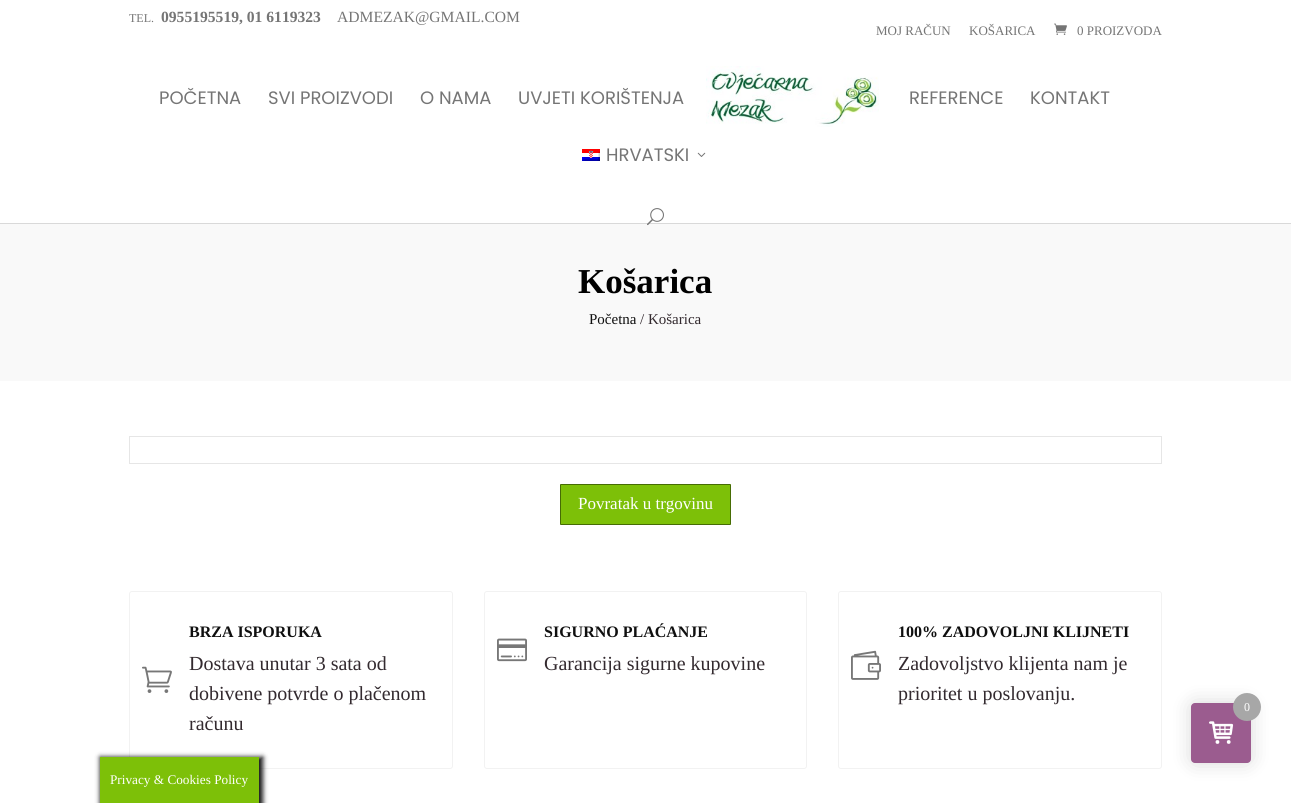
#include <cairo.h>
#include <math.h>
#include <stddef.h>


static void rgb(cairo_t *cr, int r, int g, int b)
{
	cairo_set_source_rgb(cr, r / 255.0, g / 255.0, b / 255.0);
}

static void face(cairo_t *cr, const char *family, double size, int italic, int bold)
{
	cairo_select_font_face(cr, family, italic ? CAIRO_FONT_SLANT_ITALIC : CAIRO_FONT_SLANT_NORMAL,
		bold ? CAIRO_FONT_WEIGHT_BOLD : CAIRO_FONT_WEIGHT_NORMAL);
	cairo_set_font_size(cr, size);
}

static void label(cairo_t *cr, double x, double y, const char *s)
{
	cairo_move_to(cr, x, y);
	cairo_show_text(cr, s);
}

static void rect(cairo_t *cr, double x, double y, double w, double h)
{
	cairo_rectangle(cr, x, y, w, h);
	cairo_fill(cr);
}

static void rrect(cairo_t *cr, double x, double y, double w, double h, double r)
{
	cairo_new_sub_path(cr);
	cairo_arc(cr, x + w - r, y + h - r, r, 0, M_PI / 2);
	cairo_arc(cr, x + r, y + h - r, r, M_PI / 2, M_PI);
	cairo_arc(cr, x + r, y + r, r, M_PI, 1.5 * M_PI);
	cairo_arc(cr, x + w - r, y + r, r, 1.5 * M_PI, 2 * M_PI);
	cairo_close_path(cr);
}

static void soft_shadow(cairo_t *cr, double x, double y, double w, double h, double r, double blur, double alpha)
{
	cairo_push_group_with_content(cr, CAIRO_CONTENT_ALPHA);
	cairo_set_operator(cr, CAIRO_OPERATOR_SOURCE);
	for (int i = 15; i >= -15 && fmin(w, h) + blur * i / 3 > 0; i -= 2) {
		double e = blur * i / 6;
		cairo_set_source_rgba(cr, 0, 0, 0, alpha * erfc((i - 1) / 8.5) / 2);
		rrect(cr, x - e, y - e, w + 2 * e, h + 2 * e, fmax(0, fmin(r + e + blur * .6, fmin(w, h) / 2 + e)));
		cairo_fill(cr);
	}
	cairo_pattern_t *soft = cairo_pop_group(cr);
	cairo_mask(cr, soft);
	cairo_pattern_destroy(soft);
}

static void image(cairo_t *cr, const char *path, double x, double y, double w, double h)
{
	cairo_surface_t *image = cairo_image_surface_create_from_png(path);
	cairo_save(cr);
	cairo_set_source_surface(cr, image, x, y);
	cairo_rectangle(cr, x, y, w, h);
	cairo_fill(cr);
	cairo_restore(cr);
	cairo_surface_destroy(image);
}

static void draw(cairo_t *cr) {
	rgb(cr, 255, 255, 255);
	cairo_paint(cr);
	face(cr, "Liberation Serif", 12, 0, 0);
	rgb(cr, 117, 117, 117);
	label(cr, 129, 22, "TEL.");
	face(cr, "Liberation Serif", 15.6, 0, 1);
	label(cr, 161, 22, "0955195519, 01 6119323");
	face(cr, "Liberation Serif", 15.6, 0, 0);
	label(cr, 337, 22, "ADMEZAK@GMAIL.COM");
	face(cr, "Liberation Serif", 13, 0, 0);
	label(cr, 876, 35, "MOJ RAČUN");
	label(cr, 969, 35, "KOŠARICA");
	image(cr, "image0.png", 1054, 23, 13, 12);
	label(cr, 1077, 35, "0 PROIZVODA");
	rgb(cr, 217, 217, 217);
	rect(cr, 0, 223, 1291, 1);
	face(cr, "Poppins", 18, 0, 0);
	rgb(cr, 117, 117, 117);
	label(cr, 159, 104, "POČETNA");
	label(cr, 268, 104, "SVI PROIZVODI");
	label(cr, 420, 104, "O NAMA");
	label(cr, 518, 104, "UVJETI KORIŠTENJA");
	image(cr, "image1.png", 706, 66, 173, 61);
	label(cr, 909, 104, "REFERENCE");
	label(cr, 1030, 104, "KONTAKT");
	image(cr, "image2.png", 582, 149, 18, 12);
	label(cr, 606, 161, "HRVATSKI");
	image(cr, "image3.png", 697, 152, 9, 5);
	rgb(cr, 249, 249, 249);
	rect(cr, 0, 224, 1291, 157);
	image(cr, "image4.png", 647, 208, 17, 18);
	face(cr, "Liberation Serif", 35, 0, 1);
	rgb(cr, 0, 0, 0);
	label(cr, 578, 293, "Košarica");
	face(cr, "Liberation Serif", 15, 0, 0);
	rgb(cr, 15, 15, 15);
	label(cr, 589, 324, "Početna");
	rgb(cr, 51, 42, 47);
	label(cr, 640, 324, "/ Košarica");
	cairo_rectangle(cr, 129.5, 436.5, 1032, 27);
	rgb(cr, 230, 230, 230);
	cairo_set_line_width(cr, 1);
	cairo_stroke(cr);
	rgb(cr, 125, 192, 8);
	rrect(cr, 560, 484, 171, 41, 1);
	cairo_fill(cr);
	rrect(cr, 560.5, 484.5, 170, 40, 0.5);
	cairo_set_source_rgba(cr, 0, 0, 0, 0.44);
	cairo_stroke(cr);
	face(cr, "Liberation Serif", 17, 0, 0);
	rgb(cr, 255, 255, 255);
	label(cr, 578, 509, "Povratak u trgovinu");
	rrect(cr, 129.5, 591.5, 323, 177, 2.5);
	rgb(cr, 242, 242, 242);
	cairo_stroke(cr);
	image(cr, "image5.png", 142, 666, 30, 27);
	face(cr, "Liberation Serif", 16, 0, 1);
	rgb(cr, 15, 15, 15);
	label(cr, 189, 637, "BRZA ISPORUKA");
	face(cr, "Liberation Serif", 20, 0, 0);
	rgb(cr, 51, 42, 47);
	label(cr, 189, 670, "Dostava unutar 3 sata od");
	label(cr, 189, 700, "dobivene potvrde o plačenom");
	label(cr, 189, 730, "računu");
	rrect(cr, 484.5, 591.5, 322, 177, 2.5);
	rgb(cr, 242, 242, 242);
	cairo_stroke(cr);
	image(cr, "image6.png", 497, 638, 30, 24);
	face(cr, "Liberation Serif", 16, 0, 1);
	rgb(cr, 15, 15, 15);
	label(cr, 544, 637, "SIGURNO PLAĆANJE");
	face(cr, "Liberation Serif", 20, 0, 0);
	rgb(cr, 51, 42, 47);
	label(cr, 544, 670, "Garancija sigurne kupovine");
	rrect(cr, 838.5, 591.5, 323, 177, 2.5);
	rgb(cr, 242, 242, 242);
	cairo_stroke(cr);
	image(cr, "image7.png", 851, 650, 30, 30);
	face(cr, "Liberation Serif", 16, 0, 1);
	rgb(cr, 15, 15, 15);
	label(cr, 898, 637, "100% ZADOVOLJNI KLIJNETI");
	face(cr, "Liberation Serif", 20, 0, 0);
	rgb(cr, 51, 42, 47);
	label(cr, 898, 670, "Zadovoljstvo klijenta nam je");
	label(cr, 898, 700, "prioritet u poslovanju.");
	rgb(cr, 0, 0, 0);
	soft_shadow(cr, 1191, 703, 60, 60, 4, 10, 0.15);
	rgb(cr, 155, 92, 143);
	rrect(cr, 1191, 703, 60, 60, 4);
	cairo_fill(cr);
	rgb(cr, 167, 167, 167);
	cairo_arc(cr, 1247, 707, 14, 0, 2 * M_PI);
	cairo_fill(cr);
	face(cr, "Liberation Serif", 12, 0, 0);
	rgb(cr, 255, 255, 255);
	label(cr, 1244, 711, "0");
	image(cr, "image8.png", 1209, 721, 25, 23);
	rgb(cr, 22, 22, 22);
	soft_shadow(cr, 100, 757, 163, 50, 0, 2.5, 1);
	rgb(cr, 125, 192, 8);
	rect(cr, 100, 757, 159, 46);
	face(cr, "Liberation Serif", 13.25, 0, 0);
	rgb(cr, 255, 255, 255);
	label(cr, 110, 784, "Privacy & Cookies Policy");
}

int main(void) {
	cairo_surface_t *surface = cairo_image_surface_create(CAIRO_FORMAT_RGB24, 1291, 803);
	cairo_t *cr = cairo_create(surface);
	cairo_font_options_t *options = cairo_font_options_create();
	cairo_font_options_set_hint_metrics(options, CAIRO_HINT_METRICS_OFF);
	cairo_font_options_set_hint_style(options, CAIRO_HINT_STYLE_NONE);
	cairo_set_font_options(cr, options);
	cairo_set_miter_limit(cr, 4);
	draw(cr);
	cairo_surface_write_to_png(surface, "render.png");
	cairo_font_options_destroy(options);
	cairo_destroy(cr);
	cairo_surface_destroy(surface);
	return 0;
}
